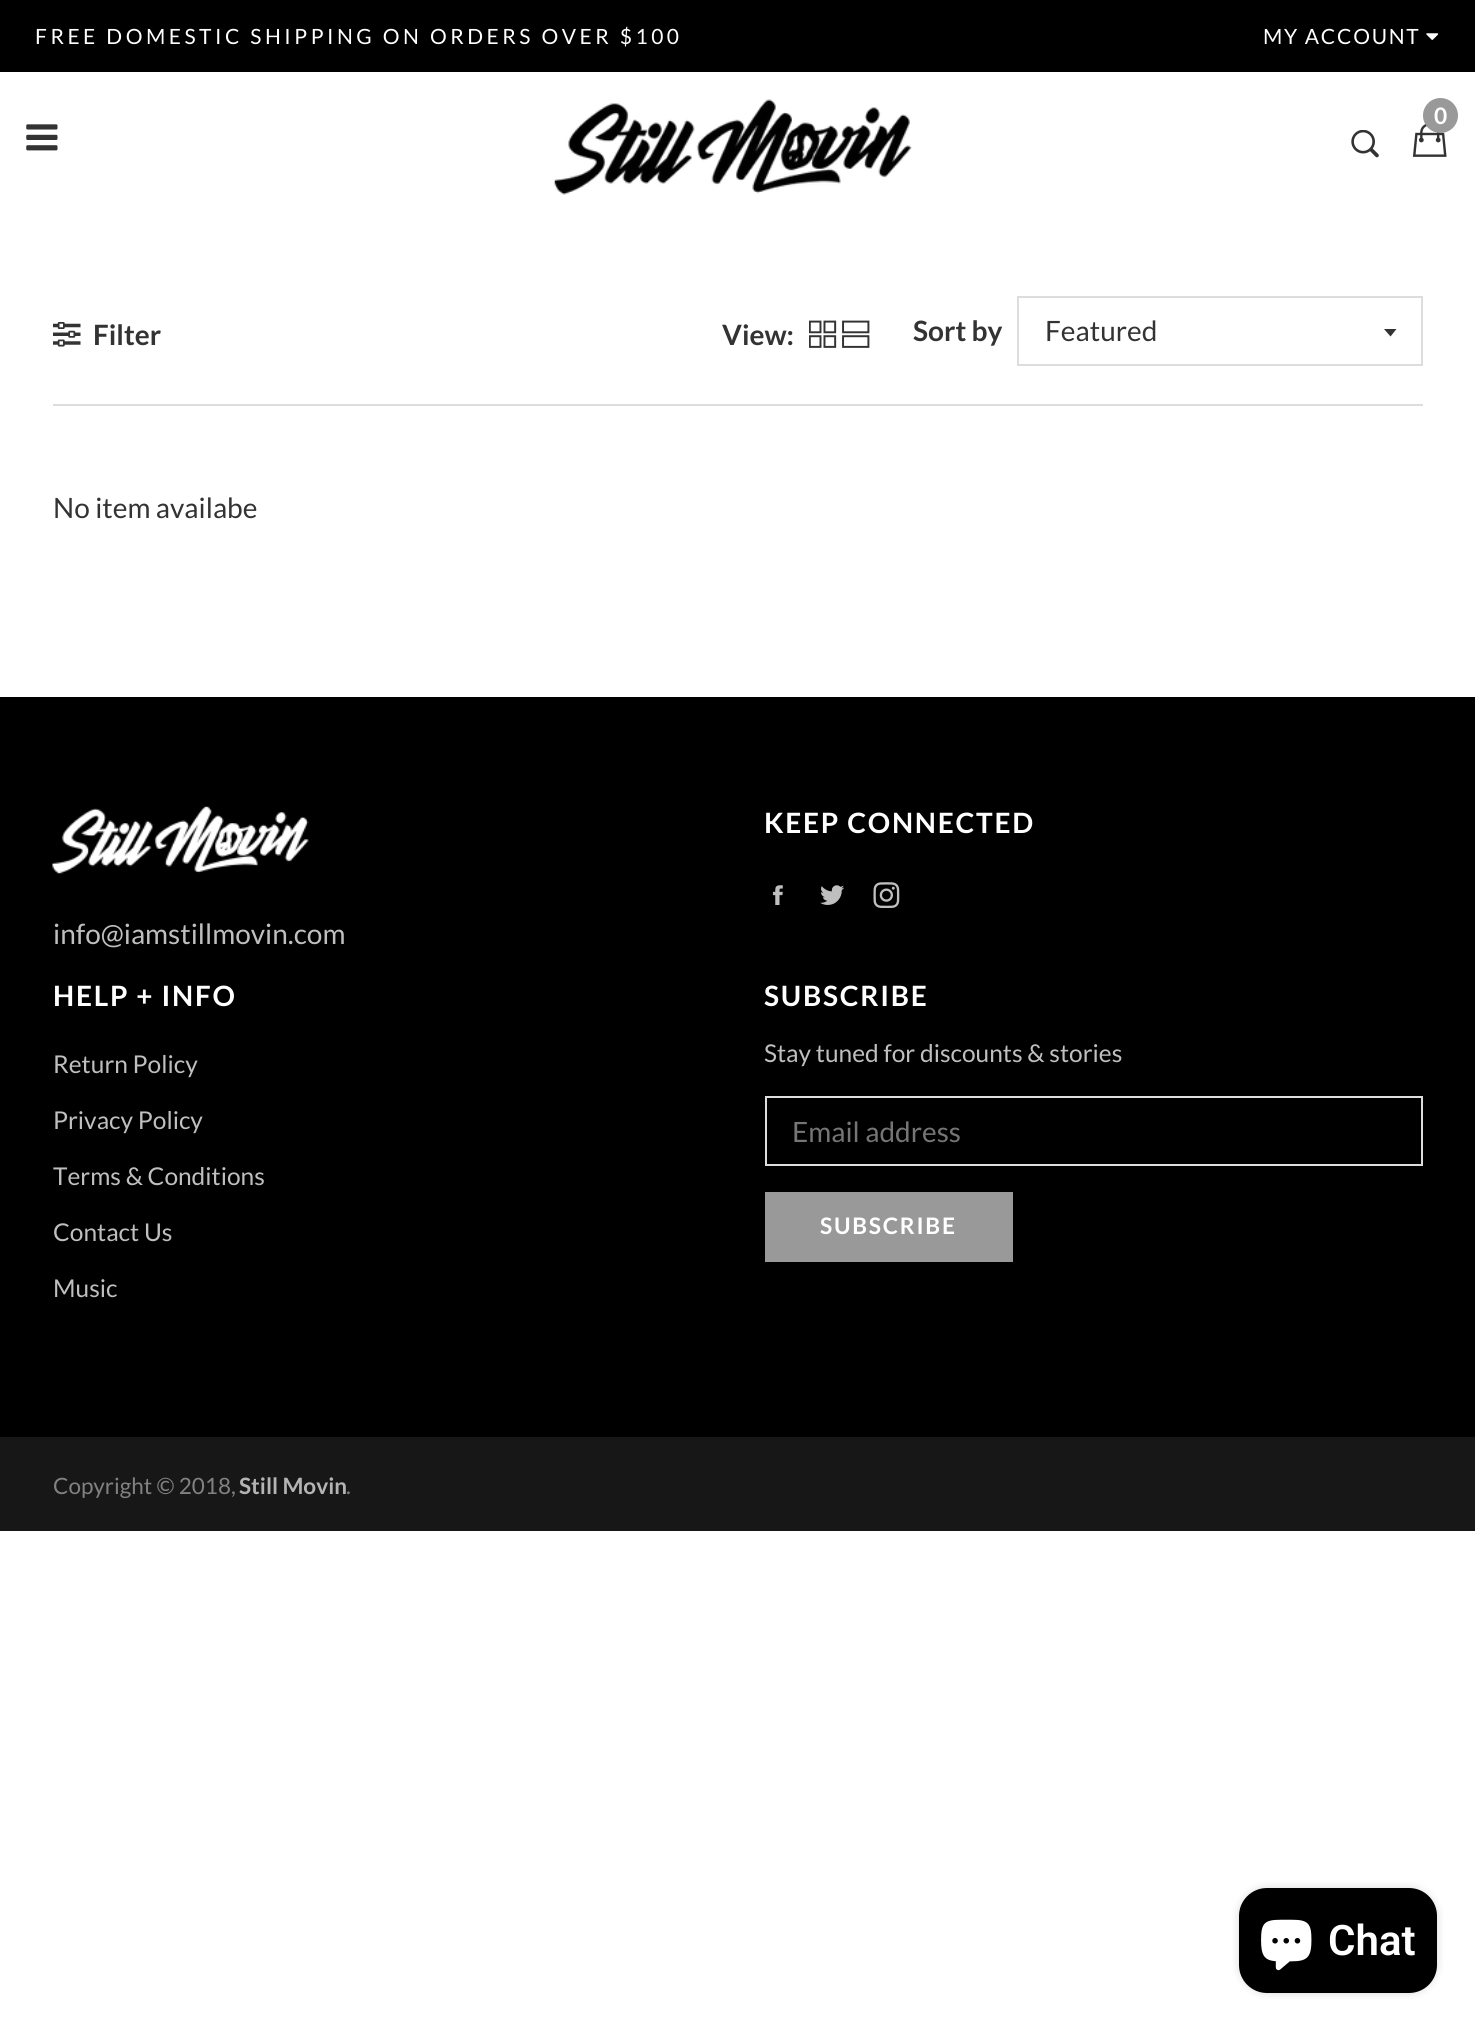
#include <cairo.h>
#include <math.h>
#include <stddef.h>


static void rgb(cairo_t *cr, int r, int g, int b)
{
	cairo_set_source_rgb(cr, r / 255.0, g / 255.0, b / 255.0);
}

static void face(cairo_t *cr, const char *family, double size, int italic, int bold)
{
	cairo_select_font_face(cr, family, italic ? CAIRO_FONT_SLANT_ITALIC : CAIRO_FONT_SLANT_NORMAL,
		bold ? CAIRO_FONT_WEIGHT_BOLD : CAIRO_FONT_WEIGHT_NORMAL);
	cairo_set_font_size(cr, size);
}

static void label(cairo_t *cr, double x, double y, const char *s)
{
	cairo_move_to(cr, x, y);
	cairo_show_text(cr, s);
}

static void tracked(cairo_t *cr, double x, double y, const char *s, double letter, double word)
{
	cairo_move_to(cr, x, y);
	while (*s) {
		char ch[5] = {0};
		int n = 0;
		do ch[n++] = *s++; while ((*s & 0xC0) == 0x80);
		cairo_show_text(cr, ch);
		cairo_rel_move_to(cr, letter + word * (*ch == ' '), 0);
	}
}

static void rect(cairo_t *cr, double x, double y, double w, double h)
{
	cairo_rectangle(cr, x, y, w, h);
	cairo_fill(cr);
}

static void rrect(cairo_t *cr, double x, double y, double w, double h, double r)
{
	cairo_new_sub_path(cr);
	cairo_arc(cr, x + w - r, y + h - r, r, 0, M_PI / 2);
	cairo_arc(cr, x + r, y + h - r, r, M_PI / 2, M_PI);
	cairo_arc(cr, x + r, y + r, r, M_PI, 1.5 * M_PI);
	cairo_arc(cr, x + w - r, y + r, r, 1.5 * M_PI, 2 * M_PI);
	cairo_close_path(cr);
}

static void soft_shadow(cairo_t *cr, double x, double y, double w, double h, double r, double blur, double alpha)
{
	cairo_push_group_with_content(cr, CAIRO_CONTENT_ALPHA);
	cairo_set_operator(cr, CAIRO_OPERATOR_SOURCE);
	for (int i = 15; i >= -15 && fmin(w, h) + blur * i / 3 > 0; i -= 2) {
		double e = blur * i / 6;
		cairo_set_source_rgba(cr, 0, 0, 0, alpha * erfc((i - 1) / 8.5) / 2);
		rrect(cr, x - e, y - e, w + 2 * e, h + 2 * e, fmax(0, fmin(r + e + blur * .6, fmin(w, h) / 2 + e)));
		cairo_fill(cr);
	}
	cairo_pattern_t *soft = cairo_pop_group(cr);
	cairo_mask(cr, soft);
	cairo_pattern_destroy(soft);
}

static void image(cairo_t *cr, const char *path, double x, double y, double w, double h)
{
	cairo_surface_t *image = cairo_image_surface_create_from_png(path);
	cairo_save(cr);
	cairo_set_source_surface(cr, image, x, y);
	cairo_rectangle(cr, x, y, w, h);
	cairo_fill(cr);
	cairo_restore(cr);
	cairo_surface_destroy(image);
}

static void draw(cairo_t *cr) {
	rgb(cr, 255, 255, 255);
	cairo_paint(cr);
	rgb(cr, 0, 0, 0);
	rect(cr, 0, 0, 1475, 72);
	face(cr, "Lato", 21, 0, 0);
	rgb(cr, 255, 255, 255);
	tracked(cr, 35, 44, "FREE DOMESTIC SHIPPING ON ORDERS OVER $100", 3.5, 0);
	tracked(cr, 1263, 44, "MY ACCOUNT", 1.75, 0);
	image(cr, "image0.png", 1426, 33, 13, 7);
	image(cr, "image1.png", 554, 99, 358, 96);
	image(cr, "image2.png", 1412, 123, 35, 34);
	rgb(cr, 153, 153, 153);
	cairo_arc(cr, 1440.5, 115.5, 17.5, 0, 2 * M_PI);
	cairo_fill(cr);
	face(cr, "Lato", 22.75, 0, 1);
	rgb(cr, 255, 255, 255);
	label(cr, 1434, 124, "0");
	image(cr, "image3.png", 1351, 130, 28, 28);
	image(cr, "image4.png", 26, 124, 32, 27);
	rgb(cr, 221, 221, 221);
	rect(cr, 53, 404, 1370, 2);
	image(cr, "image5.png", 53, 322, 28, 25);
	face(cr, "Lato", 28, 0, 1);
	rgb(cr, 51, 51, 51);
	label(cr, 93, 345, "Filter");
	label(cr, 722, 345, "View:");
	image(cr, "image6.png", 809, 320, 28, 28);
	image(cr, "image7.png", 842, 320, 28, 28);
	label(cr, 913, 341, "Sort by");
	cairo_new_path(cr);
	cairo_move_to(cr, 1384, 329);
	cairo_line_to(cr, 1390.5, 336.5);
	cairo_line_to(cr, 1396.5, 329);
	cairo_close_path(cr);
	cairo_fill(cr);
	cairo_rectangle(cr, 1018, 297, 404, 68);
	rgb(cr, 221, 221, 221);
	cairo_stroke(cr);
	face(cr, "Lato", 28, 0, 0);
	rgb(cr, 51, 51, 51);
	label(cr, 1045, 341, "Featured");
	label(cr, 53, 518, "No item availabe");
	rgb(cr, 0, 0, 0);
	rect(cr, 0, 697, 1475, 740);
	face(cr, "Lato", 28, 0, 1);
	rgb(cr, 255, 255, 255);
	tracked(cr, 764, 833, "KEEP CONNECTED", 1.75, 0);
	image(cr, "image8.png", 772, 885, 11, 20);
	image(cr, "image9.png", 820, 885, 25, 20);
	image(cr, "image10.png", 873, 882, 27, 26);
	image(cr, "image11.png", 52, 806, 257, 68);
	face(cr, "Lato", 28, 0, 0);
	rgb(cr, 191, 191, 191);
	label(cr, 53, 944, "info@iamstillmovin.com");
	face(cr, "Lato", 28, 0, 1);
	rgb(cr, 255, 255, 255);
	tracked(cr, 53, 1006, "HELP + INFO", 1.75, 0);
	face(cr, "Lato", 24.5, 0, 0);
	rgb(cr, 191, 191, 191);
	label(cr, 53, 1073, "Return Policy");
	label(cr, 53, 1129, "Privacy Policy");
	label(cr, 53, 1185, "Terms & Conditions");
	label(cr, 53, 1241, "Contact Us");
	label(cr, 53, 1297, "Music");
	face(cr, "Lato", 28, 0, 1);
	rgb(cr, 255, 255, 255);
	tracked(cr, 764, 1006, "SUBSCRIBE", 1.75, 0);
	face(cr, "Lato", 24.5, 0, 0);
	rgb(cr, 191, 191, 191);
	label(cr, 764, 1062, "Stay tuned for discounts & stories");
	cairo_rectangle(cr, 766, 1097, 656, 68);
	rgb(cr, 221, 221, 221);
	cairo_stroke(cr);
	face(cr, "Lato", 28, 0, 0);
	rgb(cr, 117, 117, 117);
	label(cr, 792, 1142, "Email address");
	rgb(cr, 153, 153, 153);
	rect(cr, 765, 1192, 248, 70);
	face(cr, "Lato", 22.75, 0, 1);
	rgb(cr, 255, 255, 255);
	tracked(cr, 820, 1234, "SUBSCRIBE", 1.75, 0);
	rgb(cr, 23, 23, 23);
	rect(cr, 0, 1437, 1475, 94);
	face(cr, "Lato", 22.5, 0, 0);
	rgb(cr, 129, 129, 129);
	label(cr, 53, 1494, "Copyright © 2018,");
	face(cr, "Lato", 22.5, 0, 1);
	rgb(cr, 180, 180, 180);
	label(cr, 239, 1494, "Still Movin");
	face(cr, "Lato", 22.5, 0, 0);
	rgb(cr, 129, 129, 129);
	label(cr, 346, 1494, ".");
	rgb(cr, 0, 0, 0);
	soft_shadow(cr, 1239, 1888, 198, 105, 28, 4.5, 0.15);
	rgb(cr, 0, 0, 0);
	rrect(cr, 1239, 1888, 198, 105, 28);
	cairo_fill(cr);
	image(cr, "image12.png", 1261, 1919, 51, 52);
	face(cr, "Roboto SemiBold", 42, 0, 0);
	rgb(cr, 255, 255, 255);
	label(cr, 1328, 1955, "Chat");
}

int main(void) {
	cairo_surface_t *surface = cairo_image_surface_create(CAIRO_FORMAT_RGB24, 1475, 2029);
	cairo_t *cr = cairo_create(surface);
	cairo_font_options_t *options = cairo_font_options_create();
	cairo_font_options_set_hint_metrics(options, CAIRO_HINT_METRICS_OFF);
	cairo_font_options_set_hint_style(options, CAIRO_HINT_STYLE_NONE);
	cairo_set_font_options(cr, options);
	cairo_set_miter_limit(cr, 4);
	draw(cr);
	cairo_surface_write_to_png(surface, "render.png");
	cairo_font_options_destroy(options);
	cairo_destroy(cr);
	cairo_surface_destroy(surface);
	return 0;
}
